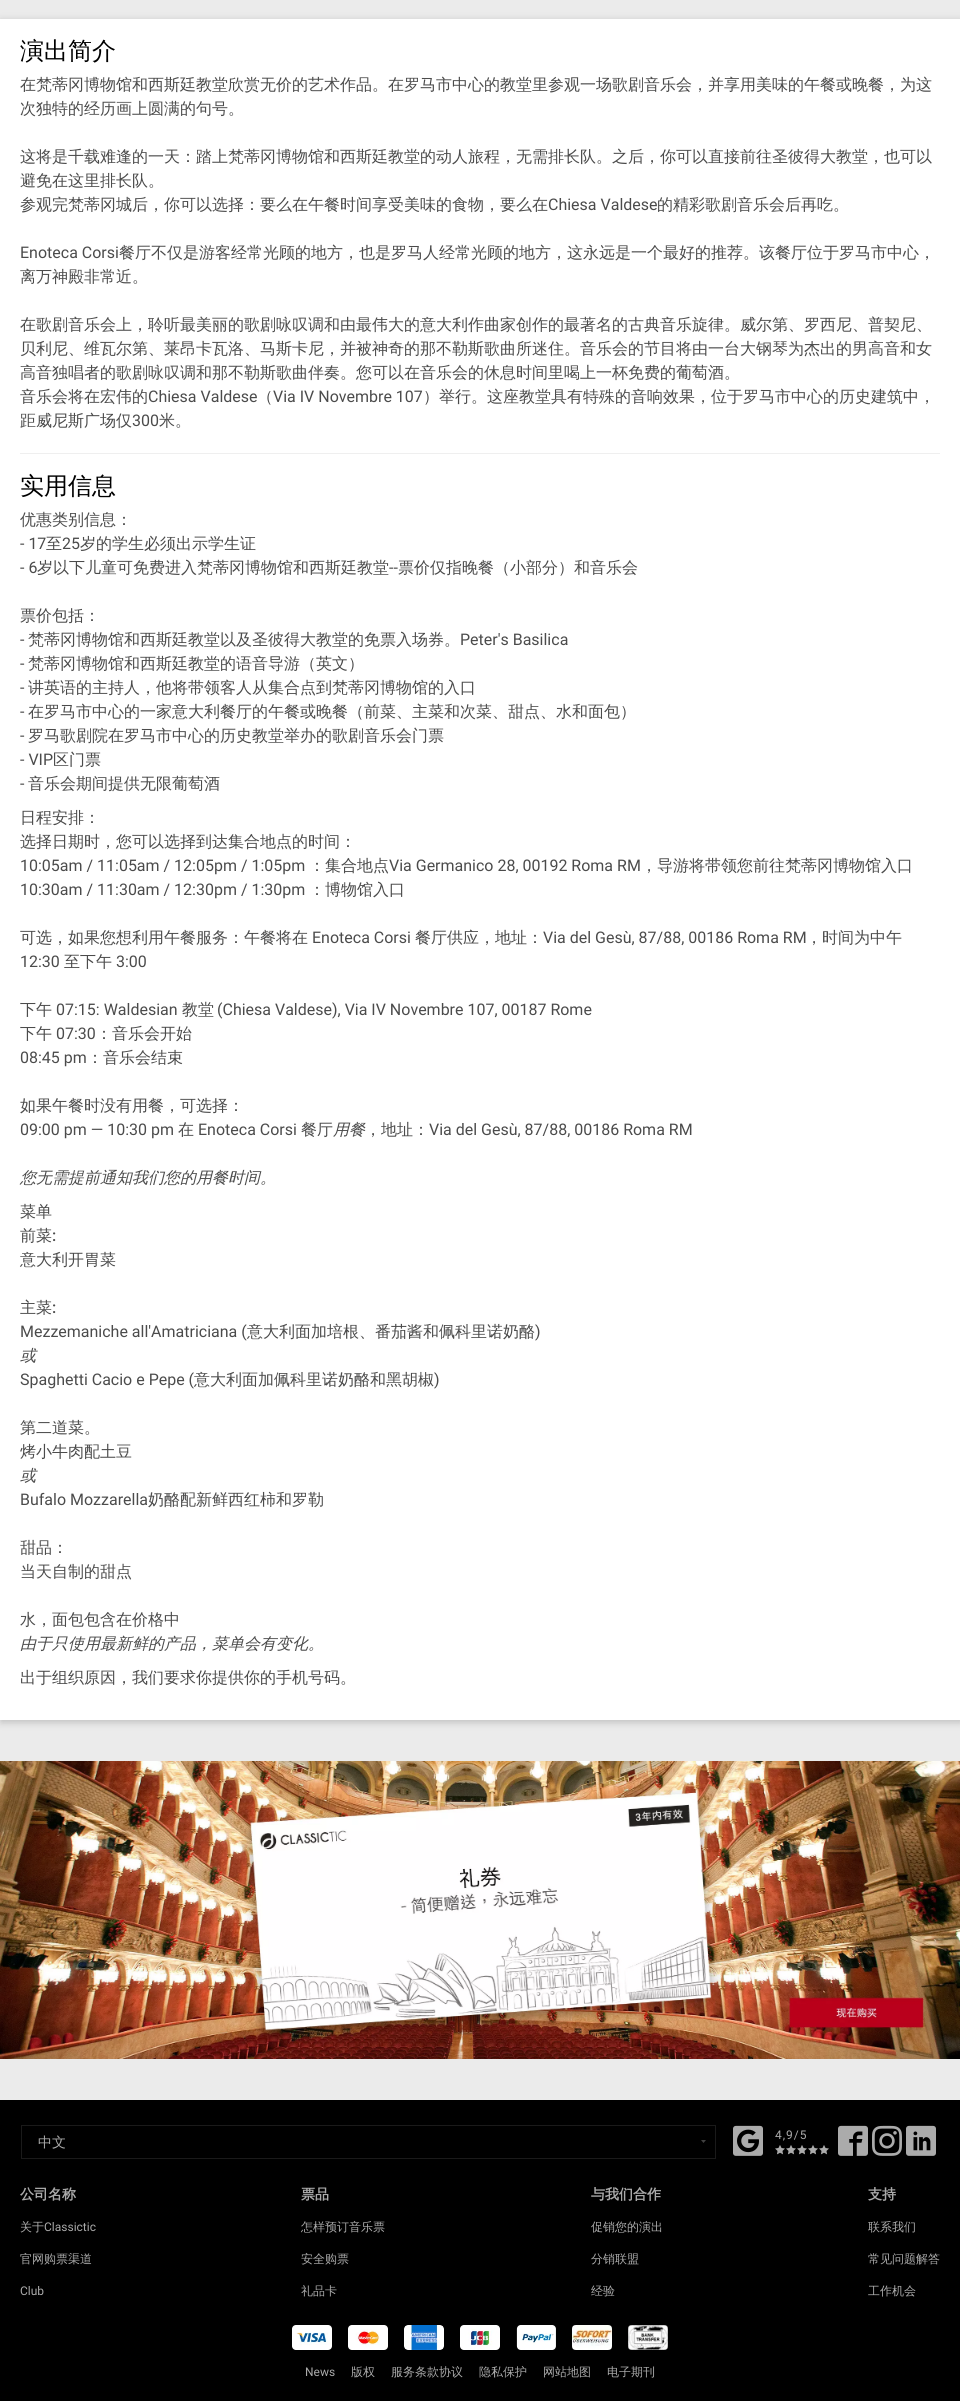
#include <cairo.h>
#include <math.h>
#include <stddef.h>


static void rgb(cairo_t *cr, int r, int g, int b)
{
	cairo_set_source_rgb(cr, r / 255.0, g / 255.0, b / 255.0);
}

static void face(cairo_t *cr, const char *family, double size, int italic, int bold)
{
	cairo_select_font_face(cr, family, italic ? CAIRO_FONT_SLANT_ITALIC : CAIRO_FONT_SLANT_NORMAL,
		bold ? CAIRO_FONT_WEIGHT_BOLD : CAIRO_FONT_WEIGHT_NORMAL);
	cairo_set_font_size(cr, size);
}

static void label(cairo_t *cr, double x, double y, const char *s)
{
	cairo_move_to(cr, x, y);
	cairo_show_text(cr, s);
}

static void tracked(cairo_t *cr, double x, double y, const char *s, double letter, double word)
{
	cairo_move_to(cr, x, y);
	while (*s) {
		char ch[5] = {0};
		int n = 0;
		do ch[n++] = *s++; while ((*s & 0xC0) == 0x80);
		cairo_show_text(cr, ch);
		cairo_rel_move_to(cr, letter + word * (*ch == ' '), 0);
	}
}

static void rect(cairo_t *cr, double x, double y, double w, double h)
{
	cairo_rectangle(cr, x, y, w, h);
	cairo_fill(cr);
}

static void rrect(cairo_t *cr, double x, double y, double w, double h, double r)
{
	cairo_new_sub_path(cr);
	cairo_arc(cr, x + w - r, y + h - r, r, 0, M_PI / 2);
	cairo_arc(cr, x + r, y + h - r, r, M_PI / 2, M_PI);
	cairo_arc(cr, x + r, y + r, r, M_PI, 1.5 * M_PI);
	cairo_arc(cr, x + w - r, y + r, r, 1.5 * M_PI, 2 * M_PI);
	cairo_close_path(cr);
}

static void soft_shadow(cairo_t *cr, double x, double y, double w, double h, double r, double blur, double alpha)
{
	cairo_push_group_with_content(cr, CAIRO_CONTENT_ALPHA);
	cairo_set_operator(cr, CAIRO_OPERATOR_SOURCE);
	for (int i = 15; i >= -15 && fmin(w, h) + blur * i / 3 > 0; i -= 2) {
		double e = blur * i / 6;
		cairo_set_source_rgba(cr, 0, 0, 0, alpha * erfc((i - 1) / 8.5) / 2);
		rrect(cr, x - e, y - e, w + 2 * e, h + 2 * e, fmax(0, fmin(r + e + blur * .6, fmin(w, h) / 2 + e)));
		cairo_fill(cr);
	}
	cairo_pattern_t *soft = cairo_pop_group(cr);
	cairo_mask(cr, soft);
	cairo_pattern_destroy(soft);
}

static void image(cairo_t *cr, const char *path, double x, double y, double w, double h)
{
	cairo_surface_t *image = cairo_image_surface_create_from_png(path);
	cairo_save(cr);
	cairo_set_source_surface(cr, image, x, y);
	cairo_rectangle(cr, x, y, w, h);
	cairo_fill(cr);
	cairo_restore(cr);
	cairo_surface_destroy(image);
}

static void draw(cairo_t *cr) {
	rgb(cr, 235, 235, 235);
	cairo_paint(cr);
	rgb(cr, 74, 74, 74);
	soft_shadow(cr, 1, 21, 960, 1701, 0, 4, 0.3);
	rgb(cr, 255, 255, 255);
	rect(cr, 0, 19, 960, 1701);
	face(cr, "WenQuanYi Zen Hei Medium", 24, 0, 0);
	rgb(cr, 0, 0, 0);
	label(cr, 20, 59, "演出简介");
	face(cr, "WenQuanYi Zen Hei Medium", 16, 0, 0);
	rgb(cr, 75, 75, 75);
	label(cr, 20, 90, "在梵蒂冈博物馆和西斯廷教堂欣赏无价的艺术作品。在罗马市中心的教堂里参观一场歌剧音乐会，并享用美味的午餐或晚餐，为这");
	label(cr, 20, 114, "次独特的经历画上圆满的句号。");
	label(cr, 20, 162, "这将是千载难逢的一天：踏上梵蒂冈博物馆和西斯廷教堂的动人旅程，无需排长队。之后，你可以直接前往圣彼得大教堂，也可以");
	label(cr, 20, 186, "避免在这里排长队。");
	label(cr, 20, 210, "参观完梵蒂冈城后，你可以选择：要么在午餐时间享受美味的食物，要么在");
	face(cr, "Roboto", 16, 0, 0);
	label(cr, 548, 210, "Chiesa Valdese");
	face(cr, "WenQuanYi Zen Hei Medium", 16, 0, 0);
	label(cr, 657, 210, "的精彩歌剧音乐会后再吃。");
	face(cr, "Roboto", 16, 0, 0);
	label(cr, 20, 258, "Enoteca Corsi");
	face(cr, "WenQuanYi Zen Hei Medium", 16, 0, 0);
	label(cr, 119, 258, "餐厅不仅是游客经常光顾的地方，也是罗马人经常光顾的地方，这永远是一个最好的推荐。该餐厅位于罗马市中心，");
	label(cr, 20, 282, "离万神殿非常近。");
	label(cr, 20, 330, "在歌剧音乐会上，聆听最美丽的歌剧咏叹调和由最伟大的意大利作曲家创作的最著名的古典音乐旋律。威尔第、罗西尼、普契尼、");
	label(cr, 20, 354, "贝利尼、维瓦尔第、莱昂卡瓦洛、马斯卡尼，并被神奇的那不勒斯歌曲所迷住。音乐会的节目将由一台大钢琴为杰出的男高音和女");
	label(cr, 20, 378, "高音独唱者的歌剧咏叹调和那不勒斯歌曲伴奏。您可以在音乐会的休息时间里喝上一杯免费的葡萄酒。");
	label(cr, 20, 402, "音乐会将在宏伟的");
	face(cr, "Roboto", 16, 0, 0);
	label(cr, 148, 402, "Chiesa Valdese");
	face(cr, "WenQuanYi Zen Hei Medium", 16, 0, 0);
	label(cr, 257, 402, "（");
	face(cr, "Roboto", 16, 0, 0);
	label(cr, 273, 402, "Via IV Novembre 107");
	face(cr, "WenQuanYi Zen Hei Medium", 16, 0, 0);
	label(cr, 423, 402, "）举行。这座教堂具有特殊的音响效果，位于罗马市中心的历史建筑中，");
	label(cr, 20, 426, "距威尼斯广场仅");
	face(cr, "Roboto", 16, 0, 0);
	label(cr, 132, 426, "300");
	face(cr, "WenQuanYi Zen Hei Medium", 16, 0, 0);
	label(cr, 159, 426, "米。");
	rgb(cr, 239, 239, 239);
	rect(cr, 20, 453, 920, 1);
	face(cr, "WenQuanYi Zen Hei Medium", 24, 0, 0);
	rgb(cr, 0, 0, 0);
	label(cr, 20, 494, "实用信息");
	face(cr, "WenQuanYi Zen Hei Medium", 16, 0, 0);
	rgb(cr, 75, 75, 75);
	label(cr, 20, 525, "优惠类别信息：");
	face(cr, "Roboto", 16, 0, 0);
	label(cr, 20, 549, "- 17");
	face(cr, "WenQuanYi Zen Hei Medium", 16, 0, 0);
	label(cr, 46, 549, "至");
	face(cr, "Roboto", 16, 0, 0);
	label(cr, 62, 549, "25");
	face(cr, "WenQuanYi Zen Hei Medium", 16, 0, 0);
	label(cr, 80, 549, "岁的学生必须出示学生证");
	face(cr, "Roboto", 16, 0, 0);
	label(cr, 20, 573, "- 6");
	face(cr, "WenQuanYi Zen Hei Medium", 16, 0, 0);
	label(cr, 37, 573, "岁以下儿童可免费进入梵蒂冈博物馆和西斯廷教堂");
	face(cr, "Roboto", 16, 0, 0);
	label(cr, 389, 573, "--");
	face(cr, "WenQuanYi Zen Hei Medium", 16, 0, 0);
	label(cr, 398, 573, "票价仅指晚餐（小部分）和音乐会");
	label(cr, 20, 621, "票价包括：");
	face(cr, "Roboto", 16, 0, 0);
	label(cr, 20, 645, "-");
	face(cr, "WenQuanYi Zen Hei Medium", 16, 0, 0);
	label(cr, 28, 645, "梵蒂冈博物馆和西斯廷教堂以及圣彼得大教堂的免票入场券。");
	face(cr, "Roboto", 16, 0, 0);
	label(cr, 460, 645, "Peter's Basilica");
	label(cr, 20, 669, "-");
	face(cr, "WenQuanYi Zen Hei Medium", 16, 0, 0);
	label(cr, 28, 669, "梵蒂冈博物馆和西斯廷教堂的语音导游（英文）");
	face(cr, "Roboto", 16, 0, 0);
	label(cr, 20, 693, "-");
	face(cr, "WenQuanYi Zen Hei Medium", 16, 0, 0);
	label(cr, 28, 693, "讲英语的主持人，他将带领客人从集合点到梵蒂冈博物馆的入口");
	face(cr, "Roboto", 16, 0, 0);
	label(cr, 20, 717, "-");
	face(cr, "WenQuanYi Zen Hei Medium", 16, 0, 0);
	label(cr, 28, 717, "在罗马市中心的一家意大利餐厅的午餐或晚餐（前菜、主菜和次菜、甜点、水和面包）");
	face(cr, "Roboto", 16, 0, 0);
	label(cr, 20, 741, "-");
	face(cr, "WenQuanYi Zen Hei Medium", 16, 0, 0);
	label(cr, 28, 741, "罗马歌剧院在罗马市中心的历史教堂举办的歌剧音乐会门票");
	face(cr, "Roboto", 16, 0, 0);
	label(cr, 20, 765, "- VIP");
	face(cr, "WenQuanYi Zen Hei Medium", 16, 0, 0);
	label(cr, 53, 765, "区门票");
	face(cr, "Roboto", 16, 0, 0);
	label(cr, 20, 789, "-");
	face(cr, "WenQuanYi Zen Hei Medium", 16, 0, 0);
	label(cr, 28, 789, "音乐会期间提供无限葡萄酒");
	label(cr, 20, 823, "日程安排：");
	label(cr, 20, 847, "选择日期时，您可以选择到达集合地点的时间：");
	face(cr, "Roboto", 16, 0, 0);
	label(cr, 20, 871, "10:05am / 11:05am / 12:05pm / 1:05pm");
	face(cr, "WenQuanYi Zen Hei Medium", 16, 0, 0);
	label(cr, 309, 871, "：集合地点");
	face(cr, "Roboto", 16, 0, 0);
	label(cr, 389, 871, "Via Germanico 28, 00192 Roma RM");
	face(cr, "WenQuanYi Zen Hei Medium", 16, 0, 0);
	label(cr, 641, 871, "，导游将带领您前往梵蒂冈博物馆入口");
	face(cr, "Roboto", 16, 0, 0);
	label(cr, 20, 895, "10:30am / 11:30am / 12:30pm / 1:30pm");
	face(cr, "WenQuanYi Zen Hei Medium", 16, 0, 0);
	label(cr, 309, 895, "：博物馆入口");
	label(cr, 20, 943, "可选，如果您想利用午餐服务：午餐将在");
	face(cr, "Roboto", 16, 0, 0);
	label(cr, 312, 943, "Enoteca Corsi");
	face(cr, "WenQuanYi Zen Hei Medium", 16, 0, 0);
	label(cr, 415, 943, "餐厅供应，地址：");
	face(cr, "Roboto", 16, 0, 0);
	label(cr, 543, 943, "Via del Gesù, 87/88, 00186 Roma RM");
	face(cr, "WenQuanYi Zen Hei Medium", 16, 0, 0);
	label(cr, 806, 943, "，时间为中午");
	face(cr, "Roboto", 16, 0, 0);
	label(cr, 20, 967, "12:30");
	face(cr, "WenQuanYi Zen Hei Medium", 16, 0, 0);
	label(cr, 64, 967, "至下午");
	face(cr, "Roboto", 16, 0, 0);
	label(cr, 116, 967, "3:00");
	face(cr, "WenQuanYi Zen Hei Medium", 16, 0, 0);
	label(cr, 20, 1015, "下午");
	face(cr, "Roboto", 16, 0, 0);
	label(cr, 56, 1015, "07:15: Waldesian");
	face(cr, "WenQuanYi Zen Hei Medium", 16, 0, 0);
	label(cr, 182, 1015, "教堂");
	face(cr, "Roboto", 16, 0, 0);
	label(cr, 217, 1015, "(Chiesa Valdese), Via IV Novembre 107, 00187 Rome");
	face(cr, "WenQuanYi Zen Hei Medium", 16, 0, 0);
	label(cr, 20, 1039, "下午");
	face(cr, "Roboto", 16, 0, 0);
	label(cr, 56, 1039, "07:30");
	face(cr, "WenQuanYi Zen Hei Medium", 16, 0, 0);
	label(cr, 96, 1039, "：音乐会开始");
	face(cr, "Roboto", 16, 0, 0);
	label(cr, 20, 1063, "08:45 pm");
	face(cr, "WenQuanYi Zen Hei Medium", 16, 0, 0);
	label(cr, 87, 1063, "：音乐会结束");
	label(cr, 20, 1111, "如果午餐时没有用餐，可选择：");
	face(cr, "Roboto", 16, 0, 0);
	label(cr, 20, 1135, "09:00 pm — 10:30 pm");
	face(cr, "WenQuanYi Zen Hei Medium", 16, 0, 0);
	label(cr, 178, 1135, "在");
	face(cr, "Roboto", 16, 0, 0);
	label(cr, 198, 1135, "Enoteca Corsi");
	face(cr, "WenQuanYi Zen Hei Medium", 16, 0, 0);
	label(cr, 301, 1135, "餐厅");
	face(cr, "WenQuanYi Zen Hei Medium", 16, 1, 0);
	label(cr, 333, 1135, "用餐");
	face(cr, "WenQuanYi Zen Hei Medium", 16, 0, 0);
	label(cr, 365, 1135, "，地址：");
	face(cr, "Roboto", 16, 0, 0);
	label(cr, 429, 1135, "Via del Gesù, 87/88, 00186 Roma RM");
	face(cr, "WenQuanYi Zen Hei Medium", 16, 1, 0);
	label(cr, 20, 1183, "您无需提前通知我们您的用餐时间。");
	face(cr, "WenQuanYi Zen Hei Medium", 16, 0, 0);
	label(cr, 20, 1217, "菜单");
	label(cr, 20, 1241, "前菜");
	face(cr, "Roboto Medium", 16, 0, 0);
	label(cr, 52, 1241, ":");
	face(cr, "WenQuanYi Zen Hei Medium", 16, 0, 0);
	label(cr, 20, 1265, "意大利开胃菜");
	label(cr, 20, 1313, "主菜");
	face(cr, "Roboto Medium", 16, 0, 0);
	label(cr, 52, 1313, ":");
	face(cr, "Roboto", 16, 0, 0);
	label(cr, 20, 1337, "Mezzemaniche all'Amatriciana (");
	face(cr, "WenQuanYi Zen Hei Medium", 16, 0, 0);
	label(cr, 247, 1337, "意大利面加培根、番茄酱和佩科里诺奶酪");
	face(cr, "Roboto", 16, 0, 0);
	label(cr, 535, 1337, ")");
	face(cr, "WenQuanYi Zen Hei Medium", 16, 1, 0);
	label(cr, 20, 1361, "或");
	face(cr, "Roboto", 16, 0, 0);
	label(cr, 20, 1385, "Spaghetti Cacio e Pepe (");
	face(cr, "WenQuanYi Zen Hei Medium", 16, 0, 0);
	label(cr, 194, 1385, "意大利面加佩科里诺奶酪和黑胡椒");
	face(cr, "Roboto", 16, 0, 0);
	label(cr, 434, 1385, ")");
	face(cr, "WenQuanYi Zen Hei Medium", 16, 0, 0);
	label(cr, 20, 1433, "第二道菜。");
	label(cr, 20, 1457, "烤小牛肉配土豆");
	face(cr, "WenQuanYi Zen Hei Medium", 16, 1, 0);
	label(cr, 20, 1481, "或");
	face(cr, "Roboto", 16, 0, 0);
	label(cr, 20, 1505, "Bufalo Mozzarella");
	face(cr, "WenQuanYi Zen Hei Medium", 16, 0, 0);
	label(cr, 148, 1505, "奶酪配新鲜西红柿和罗勒");
	label(cr, 20, 1553, "甜品：");
	label(cr, 20, 1577, "当天自制的甜点");
	label(cr, 20, 1625, "水，面包包含在价格中");
	face(cr, "WenQuanYi Zen Hei Medium", 16, 1, 0);
	label(cr, 20, 1649, "由于只使用最新鲜的产品，菜单会有变化。");
	face(cr, "WenQuanYi Zen Hei Medium", 16, 0, 0);
	label(cr, 20, 1683, "出于组织原因，我们要求你提供你的手机号码。");
	image(cr, "image0.png", 0, 1761, 960, 298);
	rgb(cr, 0, 0, 0);
	rect(cr, 0, 2100, 960, 301);
	rgb(cr, 65, 65, 65);
	cairo_set_fill_rule(cr, CAIRO_FILL_RULE_EVEN_ODD);
	cairo_new_path(cr);
	cairo_move_to(cr, 703.5, 2143);
	cairo_line_to(cr, 701, 2140);
	cairo_line_to(cr, 706, 2140);
	cairo_close_path(cr);
	cairo_fill(cr);
	cairo_rectangle(cr, 21.5, 2125.5, 694, 33);
	rgb(cr, 26, 26, 26);
	cairo_set_line_width(cr, 1);
	cairo_stroke(cr);
	face(cr, "WenQuanYi Zen Hei Medium", 14, 0, 0);
	rgb(cr, 171, 171, 171);
	label(cr, 38, 2147, "中文");
	image(cr, "image1.png", 733, 2125, 30, 31);
	face(cr, "Roboto", 12, 0, 0);
	tracked(cr, 775, 2139, "4,9/5", 1, 0);
	image(cr, "image2.png", 775, 2145, 10, 10);
	image(cr, "image2.png", 786, 2145, 10, 10);
	image(cr, "image2.png", 797, 2145, 10, 10);
	image(cr, "image2.png", 808, 2145, 10, 10);
	image(cr, "image2.png", 819, 2145, 10, 10);
	image(cr, "image3.png", 838, 2125, 30, 31);
	image(cr, "image4.png", 872, 2125, 30, 31);
	image(cr, "image5.png", 906, 2125, 30, 31);
	face(cr, "WenQuanYi Zen Hei", 14, 0, 1);
	label(cr, 20, 2199, "公司名称");
	face(cr, "WenQuanYi Zen Hei Medium", 12, 0, 0);
	label(cr, 20, 2231, "关于");
	face(cr, "Roboto", 12, 0, 0);
	label(cr, 44, 2231, "Classictic");
	face(cr, "WenQuanYi Zen Hei Medium", 12, 0, 0);
	label(cr, 20, 2263, "官网购票渠道");
	face(cr, "Roboto", 12, 0, 0);
	label(cr, 20, 2295, "Club");
	face(cr, "WenQuanYi Zen Hei", 14, 0, 1);
	label(cr, 301, 2199, "票品");
	face(cr, "WenQuanYi Zen Hei Medium", 12, 0, 0);
	label(cr, 301, 2231, "怎样预订音乐票");
	label(cr, 301, 2263, "安全购票");
	label(cr, 301, 2295, "礼品卡");
	face(cr, "WenQuanYi Zen Hei", 14, 0, 1);
	label(cr, 591, 2199, "与我们合作");
	face(cr, "WenQuanYi Zen Hei Medium", 12, 0, 0);
	label(cr, 591, 2231, "促销您的演出");
	label(cr, 591, 2263, "分销联盟");
	label(cr, 591, 2295, "经验");
	face(cr, "WenQuanYi Zen Hei", 14, 0, 1);
	label(cr, 868, 2199, "支持");
	face(cr, "WenQuanYi Zen Hei Medium", 12, 0, 0);
	label(cr, 868, 2231, "联系我们");
	label(cr, 868, 2263, "常见问题解答");
	label(cr, 868, 2295, "工作机会");
	image(cr, "image6.png", 292, 2325, 40, 25);
	image(cr, "image7.png", 348, 2325, 40, 25);
	image(cr, "image8.png", 404, 2325, 40, 25);
	image(cr, "image9.png", 460, 2325, 40, 25);
	image(cr, "image10.png", 516, 2325, 40, 25);
	image(cr, "image11.png", 572, 2325, 40, 25);
	image(cr, "image12.png", 628, 2325, 40, 25);
	face(cr, "Roboto", 12, 0, 0);
	label(cr, 305, 2376, "News");
	face(cr, "WenQuanYi Zen Hei Medium", 12, 0, 0);
	label(cr, 351, 2376, "版权");
	label(cr, 391, 2376, "服务条款协议");
	label(cr, 479, 2376, "隐私保护");
	label(cr, 543, 2376, "网站地图");
	label(cr, 607, 2376, "电子期刊");
}

int main(void) {
	cairo_surface_t *surface = cairo_image_surface_create(CAIRO_FORMAT_RGB24, 960, 2401);
	cairo_t *cr = cairo_create(surface);
	cairo_font_options_t *options = cairo_font_options_create();
	cairo_font_options_set_hint_metrics(options, CAIRO_HINT_METRICS_OFF);
	cairo_font_options_set_hint_style(options, CAIRO_HINT_STYLE_NONE);
	cairo_set_font_options(cr, options);
	cairo_set_miter_limit(cr, 4);
	draw(cr);
	cairo_surface_write_to_png(surface, "render.png");
	cairo_font_options_destroy(options);
	cairo_destroy(cr);
	cairo_surface_destroy(surface);
	return 0;
}
